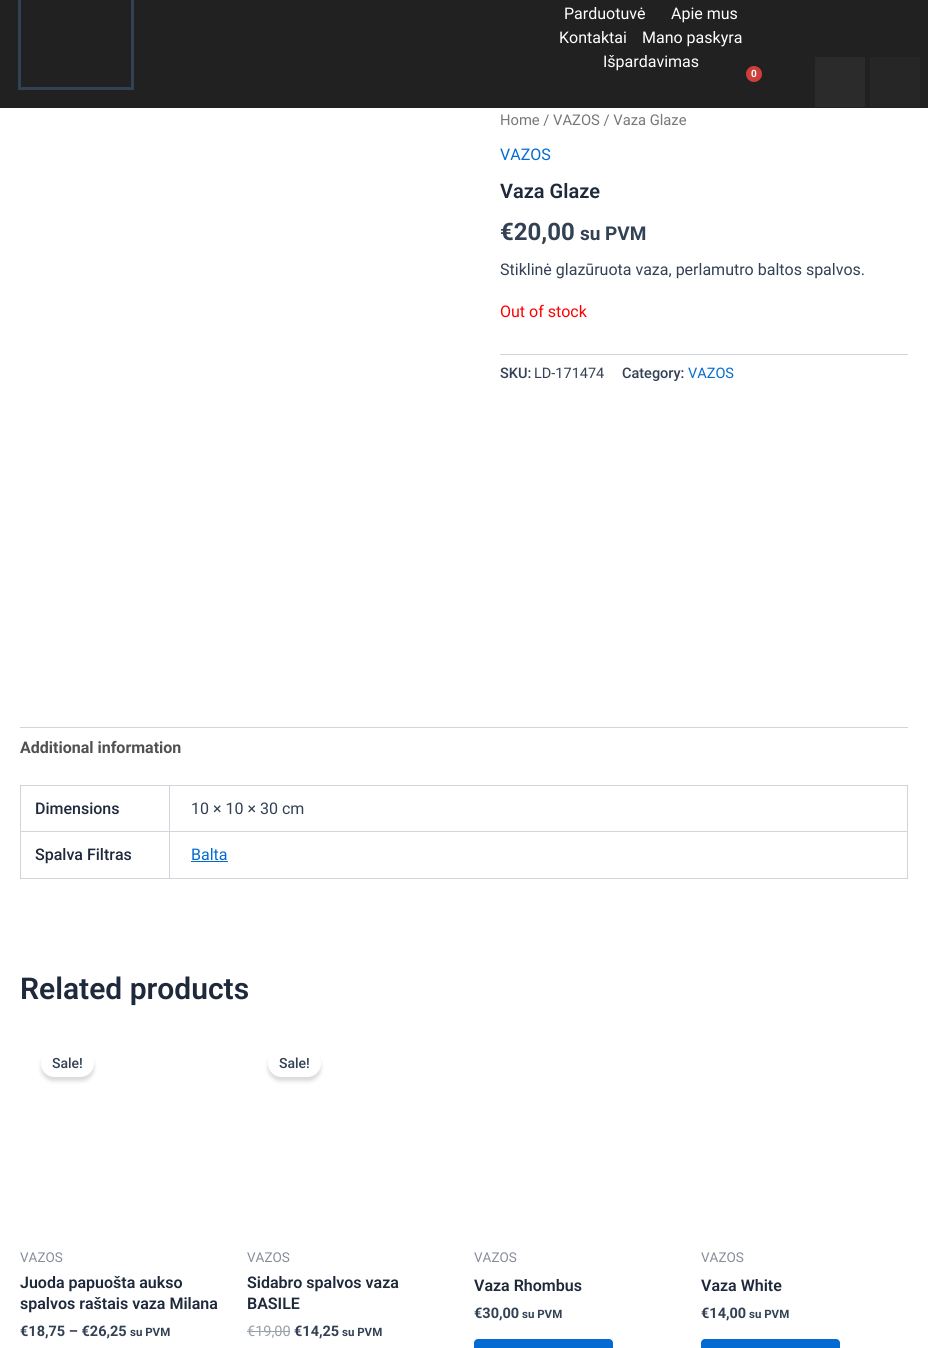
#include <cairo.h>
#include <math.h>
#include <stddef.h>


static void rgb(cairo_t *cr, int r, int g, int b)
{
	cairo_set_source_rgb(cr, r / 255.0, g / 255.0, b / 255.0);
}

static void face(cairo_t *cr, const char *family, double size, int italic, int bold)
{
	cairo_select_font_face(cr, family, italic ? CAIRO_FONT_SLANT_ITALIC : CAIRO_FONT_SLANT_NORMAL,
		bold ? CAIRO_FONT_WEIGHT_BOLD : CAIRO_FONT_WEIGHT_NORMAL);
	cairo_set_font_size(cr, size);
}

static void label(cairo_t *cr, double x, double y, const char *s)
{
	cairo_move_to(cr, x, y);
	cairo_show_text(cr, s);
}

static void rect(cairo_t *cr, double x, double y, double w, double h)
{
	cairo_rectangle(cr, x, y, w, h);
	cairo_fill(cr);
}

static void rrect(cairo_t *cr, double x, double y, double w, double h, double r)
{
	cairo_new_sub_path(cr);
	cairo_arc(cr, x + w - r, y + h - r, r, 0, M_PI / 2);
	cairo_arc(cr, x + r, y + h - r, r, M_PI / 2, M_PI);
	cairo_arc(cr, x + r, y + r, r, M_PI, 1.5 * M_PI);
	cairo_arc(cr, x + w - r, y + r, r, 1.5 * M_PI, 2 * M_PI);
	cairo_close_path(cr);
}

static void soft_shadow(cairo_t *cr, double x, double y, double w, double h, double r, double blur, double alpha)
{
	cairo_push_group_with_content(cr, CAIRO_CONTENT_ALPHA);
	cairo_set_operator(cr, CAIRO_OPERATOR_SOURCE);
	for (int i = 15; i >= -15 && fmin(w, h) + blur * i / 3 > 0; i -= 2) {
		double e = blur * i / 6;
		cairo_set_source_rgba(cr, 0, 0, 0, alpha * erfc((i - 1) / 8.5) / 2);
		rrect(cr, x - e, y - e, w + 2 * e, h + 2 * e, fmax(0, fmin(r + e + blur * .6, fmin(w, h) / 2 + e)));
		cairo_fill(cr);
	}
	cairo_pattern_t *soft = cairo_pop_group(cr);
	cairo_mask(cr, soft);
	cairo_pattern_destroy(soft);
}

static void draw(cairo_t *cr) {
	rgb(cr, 255, 255, 255);
	cairo_paint(cr);
	rgb(cr, 33, 33, 33);
	rect(cr, 0, 0, 928, 108);
	cairo_rectangle(cr, 19.5, -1.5, 113, 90);
	rgb(cr, 51, 65, 85);
	cairo_set_line_width(cr, 3);
	cairo_stroke(cr);
	face(cr, "Roboto", 16, 0, 0);
	rgb(cr, 255, 255, 255);
	label(cr, 564, 19, "Parduotuvė");
	label(cr, 671, 19, "Apie mus");
	label(cr, 559, 43, "Kontaktai");
	label(cr, 642, 43, "Mano paskyra");
	label(cr, 603, 67, "Išpardavimas");
	rgb(cr, 207, 62, 58);
	cairo_new_path(cr);
	cairo_arc(cr, 754, 74, 8, 0, 2 * M_PI);
	cairo_fill(cr);
	face(cr, "Roboto", 10, 0, 1);
	rgb(cr, 255, 255, 255);
	label(cr, 751, 77, "0");
	rgb(cr, 43, 43, 43);
	rect(cr, 815, 57, 50, 50);
	rgb(cr, 38, 38, 38);
	rect(cr, 870, 57, 50, 50);
	face(cr, "Roboto", 14.75, 0, 0);
	rgb(cr, 119, 119, 119);
	label(cr, 500, 125, "Home / VAZOS / Vaza Glaze");
	face(cr, "Roboto", 16, 0, 0);
	rgb(cr, 4, 107, 210);
	label(cr, 500, 160, "VAZOS");
	face(cr, "Roboto SemiBold", 20, 0, 0);
	rgb(cr, 30, 41, 59);
	label(cr, 500, 198, "Vaza Glaze");
	face(cr, "Roboto", 24, 0, 1);
	rgb(cr, 51, 65, 85);
	label(cr, 500, 240, "€20,00");
	face(cr, "Roboto", 19, 0, 1);
	label(cr, 580, 240, "su PVM");
	face(cr, "Roboto", 16, 0, 0);
	label(cr, 500, 275, "Stiklinė glazūruota vaza, perlamutro baltos spalvos.");
	rgb(cr, 255, 0, 0);
	label(cr, 500, 317, "Out of stock");
	rgb(cr, 209, 213, 219);
	rect(cr, 500, 354, 408, 1);
	face(cr, "Roboto Medium", 14.5, 0, 0);
	rgb(cr, 51, 65, 85);
	label(cr, 500, 378, "SKU:");
	face(cr, "Roboto", 14.5, 0, 0);
	label(cr, 534, 378, "LD-171474");
	face(cr, "Roboto Medium", 14.5, 0, 0);
	label(cr, 622, 378, "Category:");
	face(cr, "Roboto", 14.5, 0, 0);
	rgb(cr, 4, 107, 210);
	label(cr, 688, 378, "VAZOS");
	rgb(cr, 209, 213, 219);
	rect(cr, 20, 727, 888, 1);
	face(cr, "Roboto", 16, 0, 1);
	rgb(cr, 81, 81, 81);
	label(cr, 20, 753, "Additional information");
	rgb(cr, 209, 213, 219);
	rect(cr, 20, 785, 888, 1);
	rect(cr, 169, 786, 1, 93);
	rect(cr, 20, 831, 150, 1);
	rect(cr, 20, 786, 1, 46);
	face(cr, "Roboto Medium", 16, 0, 0);
	rgb(cr, 30, 41, 59);
	label(cr, 35, 814, "Dimensions");
	rgb(cr, 209, 213, 219);
	rect(cr, 907, 786, 1, 93);
	rect(cr, 170, 831, 738, 1);
	face(cr, "Roboto", 16, 0, 0);
	rgb(cr, 51, 65, 85);
	label(cr, 191, 814, "10 × 10 × 30 cm");
	rgb(cr, 209, 213, 219);
	rect(cr, 20, 878, 888, 1);
	rect(cr, 20, 832, 1, 47);
	face(cr, "Roboto Medium", 16, 0, 0);
	rgb(cr, 30, 41, 59);
	label(cr, 35, 860, "Spalva Filtras");
	face(cr, "Roboto", 16, 0, 0);
	rgb(cr, 4, 107, 210);
	label(cr, 191, 860, "Balta");
	rect(cr, 191, 861, 37, 1);
	face(cr, "Roboto SemiBold", 30, 0, 0);
	rgb(cr, 30, 41, 59);
	label(cr, 20, 999, "Related products");
	rgb(cr, 0, 0, 0);
	soft_shadow(cr, 41, 1054, 53, 27, 13.5, 2, 0.15);
	rgb(cr, 255, 255, 255);
	rrect(cr, 41, 1050, 53, 27, 13.5);
	cairo_fill(cr);
	face(cr, "Roboto Medium", 14, 0, 0);
	rgb(cr, 51, 65, 85);
	label(cr, 52, 1068, "Sale!");
	face(cr, "Roboto", 13.5, 0, 0);
	rgb(cr, 133, 141, 153);
	label(cr, 20, 1262, "VAZOS");
	face(cr, "Roboto SemiBold", 16, 0, 0);
	rgb(cr, 30, 41, 59);
	label(cr, 20, 1288, "Juoda papuošta aukso");
	label(cr, 20, 1309, "spalvos raštais vaza Milana");
	face(cr, "Roboto", 14.5, 0, 1);
	rgb(cr, 51, 65, 85);
	label(cr, 20, 1336, "€18,75 – €26,25");
	face(cr, "Roboto", 11.5, 0, 1);
	label(cr, 130, 1336, "su PVM");
	rgb(cr, 0, 0, 0);
	soft_shadow(cr, 268, 1054, 53, 27, 13.5, 2, 0.15);
	rgb(cr, 255, 255, 255);
	rrect(cr, 268, 1050, 53, 27, 13.5);
	cairo_fill(cr);
	face(cr, "Roboto Medium", 14, 0, 0);
	rgb(cr, 51, 65, 85);
	label(cr, 279, 1068, "Sale!");
	face(cr, "Roboto", 13.5, 0, 0);
	rgb(cr, 133, 141, 153);
	label(cr, 247, 1262, "VAZOS");
	face(cr, "Roboto SemiBold", 16, 0, 0);
	rgb(cr, 30, 41, 59);
	label(cr, 247, 1288, "Sidabro spalvos vaza");
	label(cr, 247, 1309, "BASILE");
	face(cr, "Roboto", 14.5, 0, 0);
	rgb(cr, 153, 160, 170);
	label(cr, 247, 1336, "€19,00");
	rect(cr, 247, 1331, 43, 1);
	face(cr, "Roboto", 14.5, 0, 1);
	rgb(cr, 51, 65, 85);
	label(cr, 294, 1336, "€14,25");
	face(cr, "Roboto", 11.5, 0, 1);
	label(cr, 342, 1336, "su PVM");
	face(cr, "Roboto", 13.5, 0, 0);
	rgb(cr, 133, 141, 153);
	label(cr, 474, 1262, "VAZOS");
	face(cr, "Roboto SemiBold", 16, 0, 0);
	rgb(cr, 30, 41, 59);
	label(cr, 474, 1291, "Vaza Rhombus");
	face(cr, "Roboto", 14.5, 0, 1);
	rgb(cr, 51, 65, 85);
	label(cr, 474, 1318, "€30,00");
	face(cr, "Roboto", 11.5, 0, 1);
	label(cr, 522, 1318, "su PVM");
	rgb(cr, 4, 107, 210);
	rrect(cr, 474, 1339, 139, 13, 4);
	cairo_fill(cr);
	face(cr, "Roboto", 13.5, 0, 0);
	rgb(cr, 133, 141, 153);
	label(cr, 701, 1262, "VAZOS");
	face(cr, "Roboto SemiBold", 16, 0, 0);
	rgb(cr, 30, 41, 59);
	label(cr, 701, 1291, "Vaza White");
	face(cr, "Roboto", 14.5, 0, 1);
	rgb(cr, 51, 65, 85);
	label(cr, 701, 1318, "€14,00");
	face(cr, "Roboto", 11.5, 0, 1);
	label(cr, 749, 1318, "su PVM");
	rgb(cr, 4, 107, 210);
	rrect(cr, 701, 1339, 139, 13, 4);
	cairo_fill(cr);
}

int main(void) {
	cairo_surface_t *surface = cairo_image_surface_create(CAIRO_FORMAT_RGB24, 928, 1348);
	cairo_t *cr = cairo_create(surface);
	cairo_font_options_t *options = cairo_font_options_create();
	cairo_font_options_set_hint_metrics(options, CAIRO_HINT_METRICS_OFF);
	cairo_font_options_set_hint_style(options, CAIRO_HINT_STYLE_NONE);
	cairo_set_font_options(cr, options);
	cairo_set_miter_limit(cr, 4);
	draw(cr);
	cairo_surface_write_to_png(surface, "render.png");
	cairo_font_options_destroy(options);
	cairo_destroy(cr);
	cairo_surface_destroy(surface);
	return 0;
}
